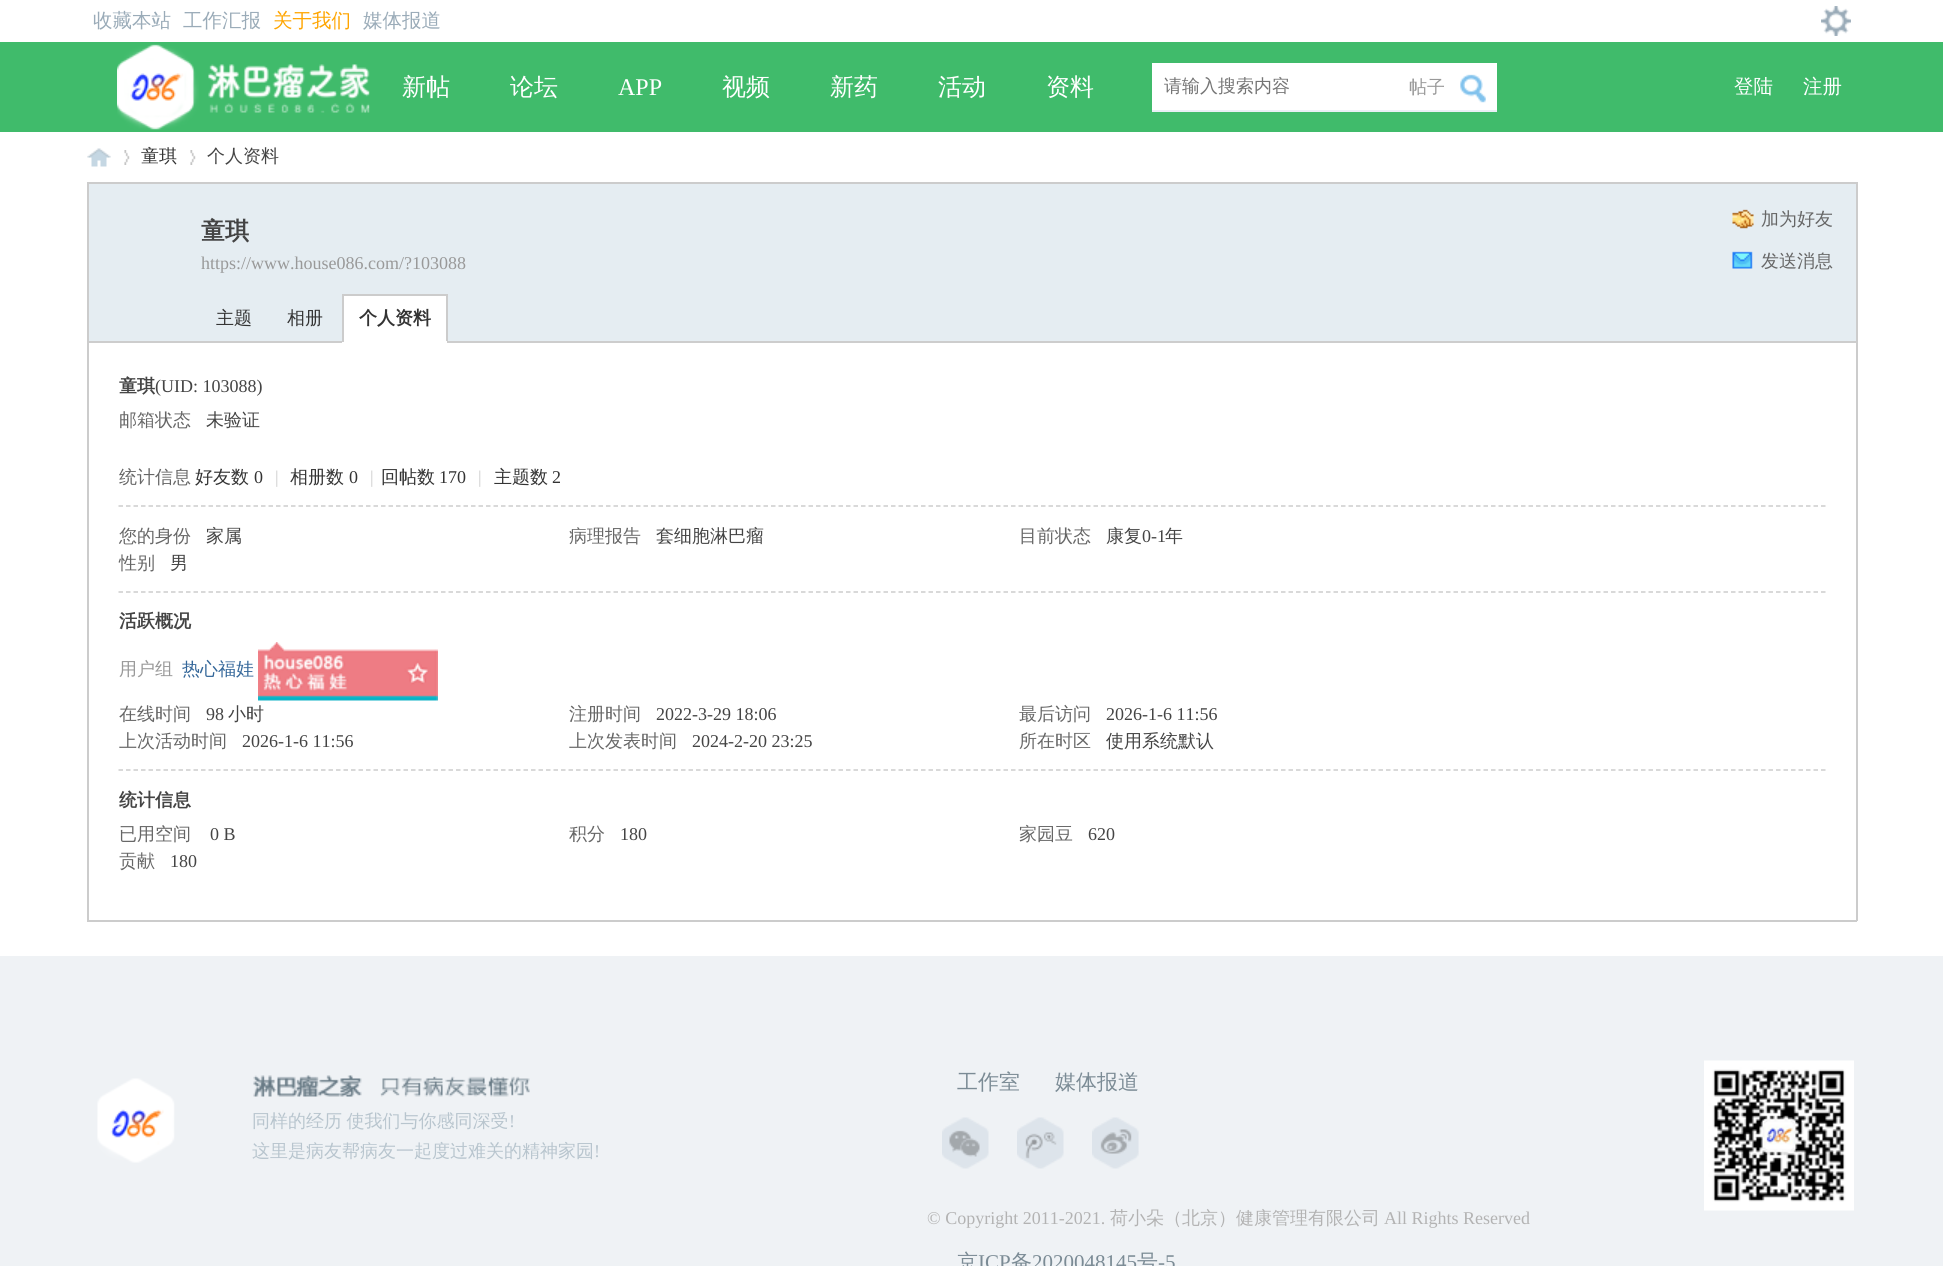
#include <cairo.h>
#include <math.h>
#include <stddef.h>


static void rgb(cairo_t *cr, int r, int g, int b)
{
	cairo_set_source_rgb(cr, r / 255.0, g / 255.0, b / 255.0);
}

static void face(cairo_t *cr, const char *family, double size, int italic, int bold)
{
	cairo_select_font_face(cr, family, italic ? CAIRO_FONT_SLANT_ITALIC : CAIRO_FONT_SLANT_NORMAL,
		bold ? CAIRO_FONT_WEIGHT_BOLD : CAIRO_FONT_WEIGHT_NORMAL);
	cairo_set_font_size(cr, size);
}

static void label(cairo_t *cr, double x, double y, const char *s)
{
	cairo_move_to(cr, x, y);
	cairo_show_text(cr, s);
}

static void tracked(cairo_t *cr, double x, double y, const char *s, double letter, double word)
{
	cairo_move_to(cr, x, y);
	while (*s) {
		char ch[5] = {0};
		int n = 0;
		do ch[n++] = *s++; while ((*s & 0xC0) == 0x80);
		cairo_show_text(cr, ch);
		cairo_rel_move_to(cr, letter + word * (*ch == ' '), 0);
	}
}

static void rect(cairo_t *cr, double x, double y, double w, double h)
{
	cairo_rectangle(cr, x, y, w, h);
	cairo_fill(cr);
}

static void image(cairo_t *cr, const char *path, double x, double y, double w, double h)
{
	cairo_surface_t *image = cairo_image_surface_create_from_png(path);
	cairo_save(cr);
	cairo_set_source_surface(cr, image, x, y);
	cairo_rectangle(cr, x, y, w, h);
	cairo_fill(cr);
	cairo_restore(cr);
	cairo_surface_destroy(image);
}

static void draw(cairo_t *cr) {
	rgb(cr, 255, 255, 255);
	cairo_paint(cr);
	face(cr, "WenQuanYi Zen Hei Medium", 19.5, 0, 0);
	rgb(cr, 154, 171, 184);
	label(cr, 93, 27, "收藏本站");
	label(cr, 183, 27, "工作汇报");
	rgb(cr, 255, 165, 0);
	label(cr, 273, 27, "关于我们");
	rgb(cr, 154, 171, 184);
	label(cr, 363, 27, "媒体报道");
	image(cr, "image0.png", 1821, 6, 30, 30);
	rgb(cr, 64, 187, 107);
	rect(cr, 0, 42, 1943, 90);
	image(cr, "image1.png", 208, 64, 162, 49);
	image(cr, "image2.png", 117, 44, 82, 86);
	face(cr, "WenQuanYi Zen Hei Medium", 24, 0, 0);
	rgb(cr, 255, 255, 255);
	label(cr, 402, 95, "新帖");
	label(cr, 510, 95, "论坛");
	face(cr, "Liberation Serif", 24, 0, 0);
	label(cr, 618, 95, "APP");
	face(cr, "WenQuanYi Zen Hei Medium", 24, 0, 0);
	label(cr, 722, 95, "视频");
	label(cr, 830, 95, "新药");
	label(cr, 938, 95, "活动");
	label(cr, 1046, 95, "资料");
	rect(cr, 1152, 63, 345, 47);
	rgb(cr, 233, 239, 245);
	rect(cr, 1152, 110, 345, 2);
	face(cr, "WenQuanYi Zen Hei Medium", 18, 0, 0);
	rgb(cr, 117, 117, 117);
	label(cr, 1164, 92, "请输入搜索内容");
	rgb(cr, 153, 153, 153);
	label(cr, 1409, 93, "帖子");
	image(cr, "image3.png", 1460, 74, 26, 29);
	face(cr, "WenQuanYi Zen Hei Medium", 19.5, 0, 0);
	rgb(cr, 255, 255, 255);
	label(cr, 1734, 93, "登陆");
	label(cr, 1803, 93, "注册");
	image(cr, "image4.png", 87, 148, 24, 19);
	image(cr, "image5.png", 124, 150, 6, 15);
	face(cr, "WenQuanYi Zen Hei Medium", 18, 0, 0);
	rgb(cr, 51, 51, 51);
	label(cr, 141, 162, "童琪");
	image(cr, "image5.png", 190, 150, 6, 15);
	rgb(cr, 68, 68, 68);
	label(cr, 207, 162, "个人资料");
	rgb(cr, 229, 237, 242);
	rect(cr, 89, 184, 1767, 157);
	rgb(cr, 204, 204, 204);
	rect(cr, 87, 182, 1770, 2);
	rect(cr, 1856, 182, 2, 739);
	rect(cr, 87, 182, 2, 160);
	face(cr, "WenQuanYi Zen Hei", 24, 0, 1);
	rgb(cr, 68, 68, 68);
	label(cr, 201, 239, "童琪");
	face(cr, "Liberation Serif", 18, 0, 0);
	rgb(cr, 153, 153, 153);
	label(cr, 201, 269, "https://www.house086.com/?103088");
	image(cr, "image6.png", 1732, 209, 22, 20);
	face(cr, "WenQuanYi Zen Hei Medium", 18, 0, 0);
	rgb(cr, 102, 102, 102);
	label(cr, 1761, 225, "加为好友");
	image(cr, "image7.png", 1732, 251, 21, 18);
	label(cr, 1761, 267, "发送消息");
	rgb(cr, 205, 205, 205);
	rect(cr, 89, 341, 1767, 2);
	rgb(cr, 51, 51, 51);
	label(cr, 216, 324, "主题");
	label(cr, 287, 324, "相册");
	rgb(cr, 255, 255, 255);
	rect(cr, 344, 296, 102, 45);
	rgb(cr, 204, 204, 204);
	rect(cr, 342, 294, 105, 2);
	rect(cr, 446, 294, 2, 48);
	rgb(cr, 255, 255, 255);
	rect(cr, 342, 341, 105, 2);
	rgb(cr, 204, 204, 204);
	rect(cr, 342, 294, 2, 48);
	face(cr, "WenQuanYi Zen Hei", 18, 0, 1);
	rgb(cr, 51, 51, 51);
	label(cr, 359, 324, "个人资料");
	rgb(cr, 204, 204, 204);
	rect(cr, 87, 920, 1770, 2);
	rect(cr, 87, 342, 2, 579);
	cairo_new_path(cr);
	cairo_move_to(cr, 118.5, 592);
	cairo_line_to(cr, 1825.5, 592);
	rgb(cr, 205, 205, 205);
	cairo_set_line_width(cr, 1.5);
	cairo_set_dash(cr, (double[]){4.5, 3}, 2, 0);
	cairo_stroke(cr);
	rgb(cr, 68, 68, 68);
	label(cr, 119, 392, "童琪");
	face(cr, "Liberation Serif", 18, 0, 0);
	label(cr, 155, 392, "(UID: 103088)");
	face(cr, "WenQuanYi Zen Hei Medium", 18, 0, 0);
	rgb(cr, 102, 102, 102);
	label(cr, 119, 426, "邮箱状态");
	rgb(cr, 68, 68, 68);
	label(cr, 206, 426, "未验证");
	cairo_new_path(cr);
	cairo_move_to(cr, 118.5, 506);
	cairo_line_to(cr, 1825.5, 506);
	rgb(cr, 205, 205, 205);
	cairo_stroke(cr);
	rgb(cr, 102, 102, 102);
	label(cr, 119, 483, "统计信息");
	rgb(cr, 51, 51, 51);
	label(cr, 195, 483, "好友数");
	face(cr, "Liberation Serif", 18, 0, 0);
	label(cr, 254, 483, "0");
	rgb(cr, 204, 204, 204);
	label(cr, 275, 483, "|");
	face(cr, "WenQuanYi Zen Hei Medium", 18, 0, 0);
	rgb(cr, 51, 51, 51);
	label(cr, 290, 483, "相册数");
	face(cr, "Liberation Serif", 18, 0, 0);
	label(cr, 349, 483, "0");
	rgb(cr, 204, 204, 204);
	label(cr, 370, 483, "|");
	face(cr, "WenQuanYi Zen Hei Medium", 18, 0, 0);
	rgb(cr, 51, 51, 51);
	label(cr, 381, 483, "回帖数");
	face(cr, "Liberation Serif", 18, 0, 0);
	label(cr, 439, 483, "170");
	rgb(cr, 204, 204, 204);
	label(cr, 478, 483, "|");
	face(cr, "WenQuanYi Zen Hei Medium", 18, 0, 0);
	rgb(cr, 51, 51, 51);
	label(cr, 494, 483, "主题数");
	face(cr, "Liberation Serif", 18, 0, 0);
	label(cr, 552, 483, "2");
	face(cr, "WenQuanYi Zen Hei Medium", 18, 0, 0);
	rgb(cr, 102, 102, 102);
	label(cr, 119, 542, "您的身份");
	rgb(cr, 68, 68, 68);
	label(cr, 206, 542, "家属");
	rgb(cr, 102, 102, 102);
	label(cr, 569, 542, "病理报告");
	rgb(cr, 68, 68, 68);
	label(cr, 656, 542, "套细胞淋巴瘤");
	rgb(cr, 102, 102, 102);
	label(cr, 1019, 542, "目前状态");
	rgb(cr, 68, 68, 68);
	label(cr, 1106, 542, "康复");
	face(cr, "Liberation Serif", 18, 0, 0);
	label(cr, 1142, 542, "0-1");
	face(cr, "WenQuanYi Zen Hei Medium", 18, 0, 0);
	label(cr, 1165, 542, "年");
	rgb(cr, 102, 102, 102);
	label(cr, 119, 569, "性别");
	rgb(cr, 68, 68, 68);
	label(cr, 170, 569, "男");
	cairo_new_path(cr);
	cairo_move_to(cr, 118.5, 770);
	cairo_line_to(cr, 1825.5, 770);
	rgb(cr, 205, 205, 205);
	cairo_stroke(cr);
	face(cr, "WenQuanYi Zen Hei", 18, 0, 1);
	rgb(cr, 68, 68, 68);
	label(cr, 119, 627, "活跃概况");
	face(cr, "WenQuanYi Zen Hei Medium", 18, 0, 0);
	rgb(cr, 153, 153, 153);
	label(cr, 119, 675, "用户组");
	rgb(cr, 51, 102, 153);
	label(cr, 182, 675, "热心福娃");
	image(cr, "image8.png", 258, 642, 180, 59);
	rgb(cr, 102, 102, 102);
	label(cr, 119, 720, "在线时间");
	face(cr, "Liberation Serif", 18, 0, 0);
	rgb(cr, 68, 68, 68);
	label(cr, 206, 720, "98");
	face(cr, "WenQuanYi Zen Hei Medium", 18, 0, 0);
	label(cr, 228, 720, "小时");
	rgb(cr, 102, 102, 102);
	label(cr, 569, 720, "注册时间");
	face(cr, "Liberation Serif", 18, 0, 0);
	rgb(cr, 68, 68, 68);
	label(cr, 656, 720, "2022-3-29 18:06");
	face(cr, "WenQuanYi Zen Hei Medium", 18, 0, 0);
	rgb(cr, 102, 102, 102);
	label(cr, 1019, 720, "最后访问");
	face(cr, "Liberation Serif", 18, 0, 0);
	rgb(cr, 68, 68, 68);
	label(cr, 1106, 720, "2026-1-6 11:56");
	face(cr, "WenQuanYi Zen Hei Medium", 18, 0, 0);
	rgb(cr, 102, 102, 102);
	label(cr, 119, 747, "上次活动时间");
	face(cr, "Liberation Serif", 18, 0, 0);
	rgb(cr, 68, 68, 68);
	label(cr, 242, 747, "2026-1-6 11:56");
	face(cr, "WenQuanYi Zen Hei Medium", 18, 0, 0);
	rgb(cr, 102, 102, 102);
	label(cr, 569, 747, "上次发表时间");
	face(cr, "Liberation Serif", 18, 0, 0);
	rgb(cr, 68, 68, 68);
	label(cr, 692, 747, "2024-2-20 23:25");
	face(cr, "WenQuanYi Zen Hei Medium", 18, 0, 0);
	rgb(cr, 102, 102, 102);
	label(cr, 1019, 747, "所在时区");
	rgb(cr, 68, 68, 68);
	label(cr, 1106, 747, "使用系统默认");
	face(cr, "WenQuanYi Zen Hei", 18, 0, 1);
	label(cr, 119, 806, "统计信息");
	face(cr, "WenQuanYi Zen Hei Medium", 18, 0, 0);
	rgb(cr, 102, 102, 102);
	label(cr, 119, 840, "已用空间");
	face(cr, "Liberation Serif", 18, 0, 0);
	rgb(cr, 68, 68, 68);
	label(cr, 210, 840, "0 B");
	face(cr, "WenQuanYi Zen Hei Medium", 18, 0, 0);
	rgb(cr, 102, 102, 102);
	label(cr, 569, 840, "积分");
	face(cr, "Liberation Serif", 18, 0, 0);
	rgb(cr, 68, 68, 68);
	label(cr, 620, 840, "180");
	face(cr, "WenQuanYi Zen Hei Medium", 18, 0, 0);
	rgb(cr, 102, 102, 102);
	label(cr, 1019, 840, "家园豆");
	face(cr, "Liberation Serif", 18, 0, 0);
	rgb(cr, 68, 68, 68);
	label(cr, 1088, 840, "620");
	face(cr, "WenQuanYi Zen Hei Medium", 18, 0, 0);
	rgb(cr, 102, 102, 102);
	label(cr, 119, 867, "贡献");
	face(cr, "Liberation Serif", 18, 0, 0);
	rgb(cr, 68, 68, 68);
	label(cr, 170, 867, "180");
	rgb(cr, 239, 242, 245);
	rect(cr, 0, 956, 1943, 310);
	image(cr, "image9.png", 97, 1078, 78, 85);
	image(cr, "image10.png", 253, 1075, 277, 22);
	face(cr, "WenQuanYi Zen Hei Medium", 18, 0, 0);
	rgb(cr, 184, 197, 206);
	tracked(cr, 252, 1127, "同样的经历 使我们与你感同深受", 0, -1);
	face(cr, "Liberation Serif", 18, 0, 0);
	label(cr, 509, 1127, "!");
	face(cr, "WenQuanYi Zen Hei Medium", 18, 0, 0);
	label(cr, 252, 1157, "这里是病友帮病友一起度过难关的精神家园");
	face(cr, "Liberation Serif", 18, 0, 0);
	label(cr, 594, 1157, "!");
	face(cr, "WenQuanYi Zen Hei Medium", 21, 0, 0);
	rgb(cr, 123, 139, 149);
	label(cr, 957, 1089, "工作室");
	label(cr, 1055, 1089, "媒体报道");
	face(cr, "Liberation Serif", 18, 0, 0);
	rgb(cr, 179, 179, 179);
	label(cr, 927, 1224, "© Copyright 2011-2021.");
	face(cr, "WenQuanYi Zen Hei Medium", 18, 0, 0);
	label(cr, 1110, 1224, "荷小朵（北京）健康管理有限公司");
	face(cr, "Liberation Serif", 18, 0, 0);
	label(cr, 1384, 1224, "All Rights Reserved");
	face(cr, "WenQuanYi Zen Hei Medium", 21, 0, 0);
	rgb(cr, 123, 139, 149);
	label(cr, 957, 1269, "京");
	face(cr, "Liberation Serif", 21, 0, 0);
	label(cr, 978, 1269, "ICP");
	face(cr, "WenQuanYi Zen Hei Medium", 21, 0, 0);
	label(cr, 1011, 1269, "备");
	face(cr, "Liberation Serif", 21, 0, 0);
	label(cr, 1032, 1269, "2020048145");
	face(cr, "WenQuanYi Zen Hei Medium", 21, 0, 0);
	label(cr, 1137, 1269, "号");
	face(cr, "Liberation Serif", 21, 0, 0);
	label(cr, 1158, 1269, "-5");
	image(cr, "image11.png", 942, 1117, 47, 52);
	image(cr, "image12.png", 1017, 1117, 47, 52);
	image(cr, "image13.png", 1092, 1117, 47, 52);
	image(cr, "image14.png", 1704, 1060, 150, 151);
}

int main(void) {
	cairo_surface_t *surface = cairo_image_surface_create(CAIRO_FORMAT_RGB24, 1943, 1266);
	cairo_t *cr = cairo_create(surface);
	cairo_font_options_t *options = cairo_font_options_create();
	cairo_font_options_set_hint_metrics(options, CAIRO_HINT_METRICS_OFF);
	cairo_font_options_set_hint_style(options, CAIRO_HINT_STYLE_NONE);
	cairo_set_font_options(cr, options);
	cairo_set_miter_limit(cr, 4);
	draw(cr);
	cairo_surface_write_to_png(surface, "render.png");
	cairo_font_options_destroy(options);
	cairo_destroy(cr);
	cairo_surface_destroy(surface);
	return 0;
}
